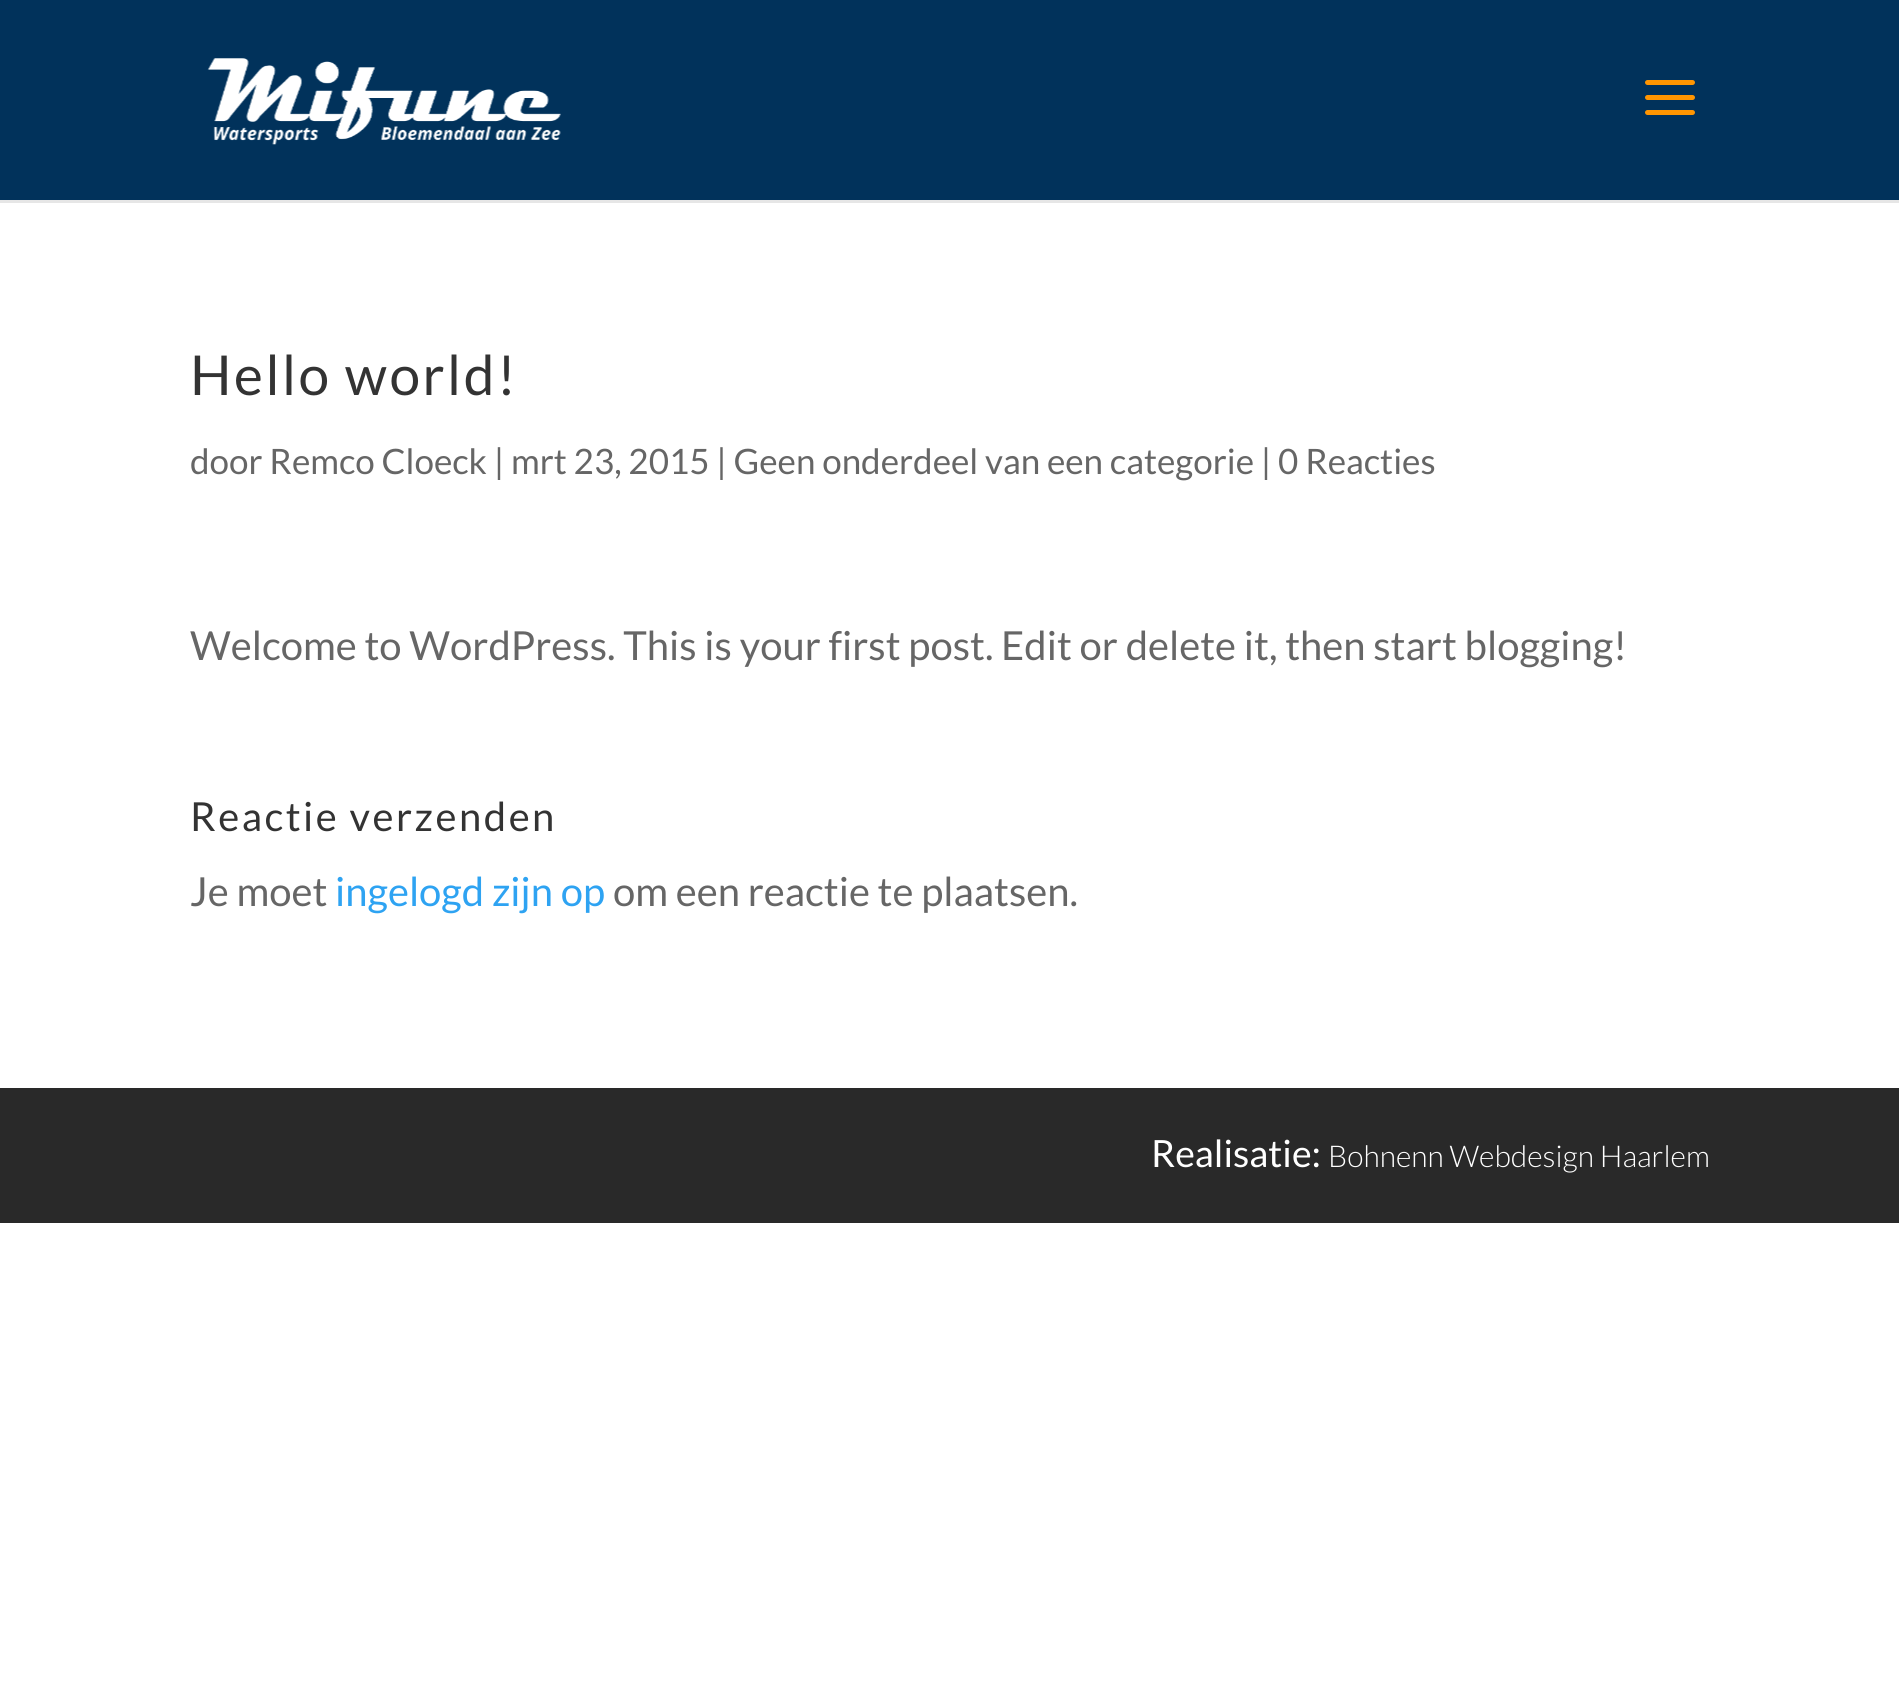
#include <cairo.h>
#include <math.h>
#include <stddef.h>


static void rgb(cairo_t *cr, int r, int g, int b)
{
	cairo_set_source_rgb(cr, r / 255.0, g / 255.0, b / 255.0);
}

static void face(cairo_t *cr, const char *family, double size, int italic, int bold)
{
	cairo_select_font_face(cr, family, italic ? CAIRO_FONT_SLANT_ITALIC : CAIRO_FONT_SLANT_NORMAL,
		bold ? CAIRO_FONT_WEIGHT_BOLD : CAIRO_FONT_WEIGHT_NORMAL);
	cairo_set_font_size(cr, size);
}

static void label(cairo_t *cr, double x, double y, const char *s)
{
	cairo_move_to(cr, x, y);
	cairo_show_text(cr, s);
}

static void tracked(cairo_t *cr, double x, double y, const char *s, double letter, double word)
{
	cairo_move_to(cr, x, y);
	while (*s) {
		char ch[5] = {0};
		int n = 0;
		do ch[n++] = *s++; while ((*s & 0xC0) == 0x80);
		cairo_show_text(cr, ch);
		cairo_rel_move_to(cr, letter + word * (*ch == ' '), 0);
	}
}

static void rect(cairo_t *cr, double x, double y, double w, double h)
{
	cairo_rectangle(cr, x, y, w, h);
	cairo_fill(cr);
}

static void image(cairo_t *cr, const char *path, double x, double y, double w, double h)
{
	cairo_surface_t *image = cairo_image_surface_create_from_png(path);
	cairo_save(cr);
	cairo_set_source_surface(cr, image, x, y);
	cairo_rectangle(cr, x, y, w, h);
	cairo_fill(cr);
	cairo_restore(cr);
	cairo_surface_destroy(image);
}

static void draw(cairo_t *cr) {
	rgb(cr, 255, 255, 255);
	cairo_paint(cr);
	rgb(cr, 230, 230, 230);
	rect(cr, 0, 200, 1899, 3);
	rgb(cr, 1, 50, 91);
	rect(cr, 0, 0, 1899, 200);
	image(cr, "image0.png", 207, 58, 354, 87);
	image(cr, "image1.png", 1645, 80, 50, 35);
	face(cr, "Lato", 55, 0, 0);
	rgb(cr, 51, 51, 51);
	tracked(cr, 190, 395, "Hello world!", 2.5, 0);
	face(cr, "Lato", 35, 0, 0);
	rgb(cr, 102, 102, 102);
	label(cr, 190, 474, "door Remco Cloeck | mrt 23, 2015 | Geen onderdeel van een categorie | 0 Reacties");
	face(cr, "Lato", 40, 0, 0);
	label(cr, 190, 660, "Welcome to WordPress. This is your first post. Edit or delete it, then start blogging!");
	rgb(cr, 51, 51, 51);
	tracked(cr, 190, 831, "Reactie verzenden", 2.5, 0);
	rgb(cr, 102, 102, 102);
	label(cr, 190, 906, "Je moet");
	rgb(cr, 46, 163, 242);
	label(cr, 335, 906, "ingelogd zijn op");
	rgb(cr, 102, 102, 102);
	label(cr, 613, 906, "om een reactie te plaatsen.");
	rgb(cr, 41, 41, 41);
	rect(cr, 0, 1088, 1899, 135);
	face(cr, "Lato", 37.5, 0, 0);
	rgb(cr, 255, 255, 255);
	label(cr, 1151, 1167, "Realisatie:");
	face(cr, "Lato Light", 30, 0, 0);
	label(cr, 1328, 1167, "Bohnenn Webdesign Haarlem");
}

int main(void) {
	cairo_surface_t *surface = cairo_image_surface_create(CAIRO_FORMAT_RGB24, 1899, 1688);
	cairo_t *cr = cairo_create(surface);
	cairo_font_options_t *options = cairo_font_options_create();
	cairo_font_options_set_hint_metrics(options, CAIRO_HINT_METRICS_OFF);
	cairo_font_options_set_hint_style(options, CAIRO_HINT_STYLE_NONE);
	cairo_set_font_options(cr, options);
	cairo_set_miter_limit(cr, 4);
	draw(cr);
	cairo_surface_write_to_png(surface, "render.png");
	cairo_font_options_destroy(options);
	cairo_destroy(cr);
	cairo_surface_destroy(surface);
	return 0;
}
